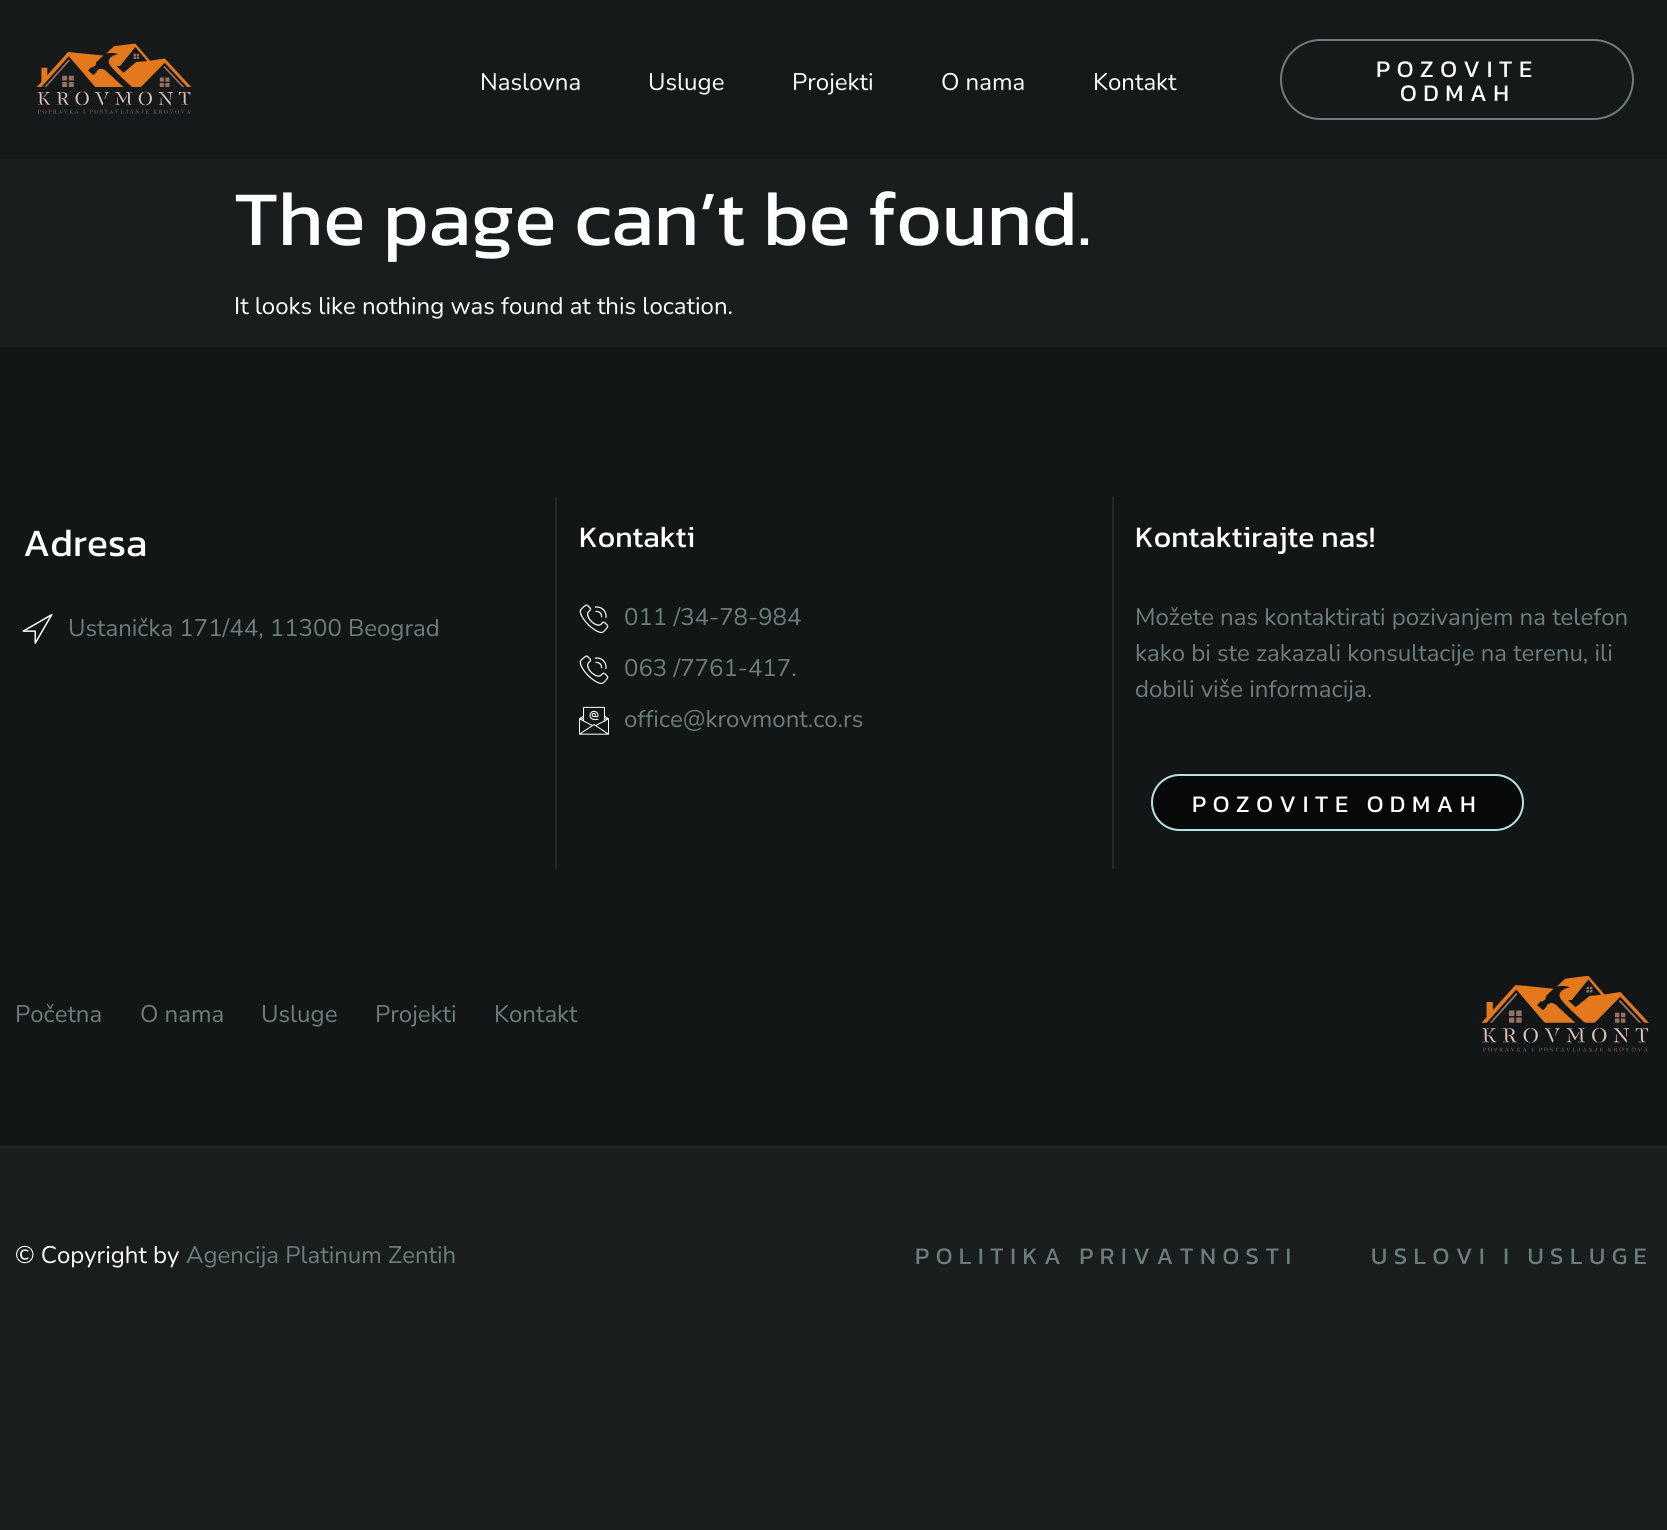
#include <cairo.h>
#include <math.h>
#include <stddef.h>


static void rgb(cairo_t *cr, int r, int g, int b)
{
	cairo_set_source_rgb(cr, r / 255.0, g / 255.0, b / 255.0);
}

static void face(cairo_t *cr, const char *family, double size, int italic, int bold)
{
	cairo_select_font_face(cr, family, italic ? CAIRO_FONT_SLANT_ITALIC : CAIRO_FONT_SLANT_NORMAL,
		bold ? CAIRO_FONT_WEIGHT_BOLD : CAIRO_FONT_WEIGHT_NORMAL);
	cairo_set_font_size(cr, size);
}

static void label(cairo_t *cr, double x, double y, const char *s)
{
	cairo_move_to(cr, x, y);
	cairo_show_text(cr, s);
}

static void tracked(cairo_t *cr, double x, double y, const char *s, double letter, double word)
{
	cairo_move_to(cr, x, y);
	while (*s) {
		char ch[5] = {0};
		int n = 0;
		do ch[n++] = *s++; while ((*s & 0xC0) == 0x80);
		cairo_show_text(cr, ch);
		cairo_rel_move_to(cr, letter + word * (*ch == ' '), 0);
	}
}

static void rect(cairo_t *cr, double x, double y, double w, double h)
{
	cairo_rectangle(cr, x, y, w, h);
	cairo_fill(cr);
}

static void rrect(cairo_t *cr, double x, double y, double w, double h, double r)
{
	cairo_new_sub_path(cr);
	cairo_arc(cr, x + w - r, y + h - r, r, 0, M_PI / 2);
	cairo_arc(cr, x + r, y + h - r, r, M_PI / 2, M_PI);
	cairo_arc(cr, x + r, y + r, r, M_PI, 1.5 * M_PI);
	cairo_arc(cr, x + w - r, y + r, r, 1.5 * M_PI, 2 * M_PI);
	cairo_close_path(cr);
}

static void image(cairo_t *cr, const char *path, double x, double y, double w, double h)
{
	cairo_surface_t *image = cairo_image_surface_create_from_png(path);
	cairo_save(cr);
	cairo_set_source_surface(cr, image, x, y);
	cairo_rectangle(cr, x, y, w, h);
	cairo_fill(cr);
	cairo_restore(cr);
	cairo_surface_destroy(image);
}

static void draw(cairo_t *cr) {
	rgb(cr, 25, 29, 29);
	cairo_paint(cr);
	rgb(cr, 22, 25, 25);
	rect(cr, 0, 0, 1667, 159);
	image(cr, "image0.png", 37, 43, 154, 71);
	face(cr, "Nunito", 24, 0, 0);
	rgb(cr, 255, 255, 255);
	label(cr, 480, 90, "Naslovna");
	label(cr, 648, 90, "Usluge");
	label(cr, 792, 90, "Projekti");
	label(cr, 941, 90, "O nama");
	label(cr, 1093, 90, "Kontakt");
	rrect(cr, 1281, 40, 352, 79, 39.5);
	rgb(cr, 109, 125, 125);
	cairo_stroke(cr);
	face(cr, "Kanit", 24, 0, 0);
	rgb(cr, 255, 255, 255);
	tracked(cr, 1376, 77, "POZOVITE", 6.5, 0);
	tracked(cr, 1400, 101, "ODMAH", 6.5, 0);
	face(cr, "Kanit", 78, 0, 0);
	label(cr, 234, 245, "The page can’t be found.");
	face(cr, "Nunito", 24, 0, 0);
	label(cr, 234, 314, "It looks like nothing was found at this location.");
	rgb(cr, 19, 22, 22);
	rect(cr, 0, 347, 1667, 799);
	rgb(cr, 33, 40, 40);
	rect(cr, 555, 497, 2, 372);
	face(cr, "Kanit", 39, 0, 0);
	rgb(cr, 255, 255, 255);
	label(cr, 23, 556, "Adresa");
	image(cr, "image1.png", 22, 613, 31, 31);
	face(cr, "Nunito", 24, 0, 0);
	rgb(cr, 109, 125, 125);
	label(cr, 68, 636, "Ustanička 171/44, 11300 Beograd");
	rgb(cr, 33, 40, 40);
	rect(cr, 1112, 497, 2, 372);
	face(cr, "Kanit", 30, 0, 0);
	rgb(cr, 255, 255, 255);
	label(cr, 579, 547, "Kontakti");
	image(cr, "image2.png", 579, 604, 30, 30);
	face(cr, "Nunito", 24, 0, 0);
	rgb(cr, 109, 125, 125);
	label(cr, 624, 625, "011 /34-78-984");
	image(cr, "image2.png", 579, 655, 30, 30);
	label(cr, 624, 676, "063 /7761-417.");
	image(cr, "image3.png", 579, 706, 30, 29);
	label(cr, 624, 727, "office@krovmont.co.rs");
	face(cr, "Kanit", 30, 0, 0);
	rgb(cr, 255, 255, 255);
	label(cr, 1135, 547, "Kontaktirajte nas!");
	face(cr, "Nunito", 24, 0, 0);
	rgb(cr, 109, 125, 125);
	label(cr, 1135, 625, "Možete nas kontaktirati pozivanjem na telefon");
	label(cr, 1135, 661, "kako bi ste zakazali konsultacije na terenu, ili");
	label(cr, 1135, 697, "dobili više informacija.");
	rgb(cr, 7, 8, 8);
	rrect(cr, 1152, 775, 371, 55, 27.5);
	cairo_fill_preserve(cr);
	rgb(cr, 182, 226, 226);
	cairo_stroke(cr);
	face(cr, "Kanit", 24, 0, 0);
	rgb(cr, 255, 255, 255);
	tracked(cr, 1192, 812, "POZOVITE ODMAH", 6.5, 0);
	face(cr, "Nunito", 24, 0, 0);
	rgb(cr, 109, 125, 125);
	label(cr, 15, 1022, "Početna");
	label(cr, 140, 1022, "O nama");
	label(cr, 261, 1022, "Usluge");
	label(cr, 375, 1022, "Projekti");
	label(cr, 494, 1022, "Kontakt");
	image(cr, "image4.png", 1481, 975, 168, 77);
	rgb(cr, 33, 40, 40);
	rect(cr, 0, 1146, 1667, 2);
	rgb(cr, 255, 255, 255);
	label(cr, 15, 1263, "© Copyright by");
	rgb(cr, 109, 125, 125);
	label(cr, 186, 1263, "Agencija Platinum Zentih");
	face(cr, "Kanit", 24, 0, 0);
	tracked(cr, 915, 1264, "POLITIKA PRIVATNOSTI", 6.5, 0);
	tracked(cr, 1371, 1264, "USLOVI I USLUGE", 6.5, 0);
}

int main(void) {
	cairo_surface_t *surface = cairo_image_surface_create(CAIRO_FORMAT_RGB24, 1667, 1530);
	cairo_t *cr = cairo_create(surface);
	cairo_font_options_t *options = cairo_font_options_create();
	cairo_font_options_set_hint_metrics(options, CAIRO_HINT_METRICS_OFF);
	cairo_font_options_set_hint_style(options, CAIRO_HINT_STYLE_NONE);
	cairo_set_font_options(cr, options);
	cairo_set_miter_limit(cr, 4);
	draw(cr);
	cairo_surface_write_to_png(surface, "render.png");
	cairo_font_options_destroy(options);
	cairo_destroy(cr);
	cairo_surface_destroy(surface);
	return 0;
}
